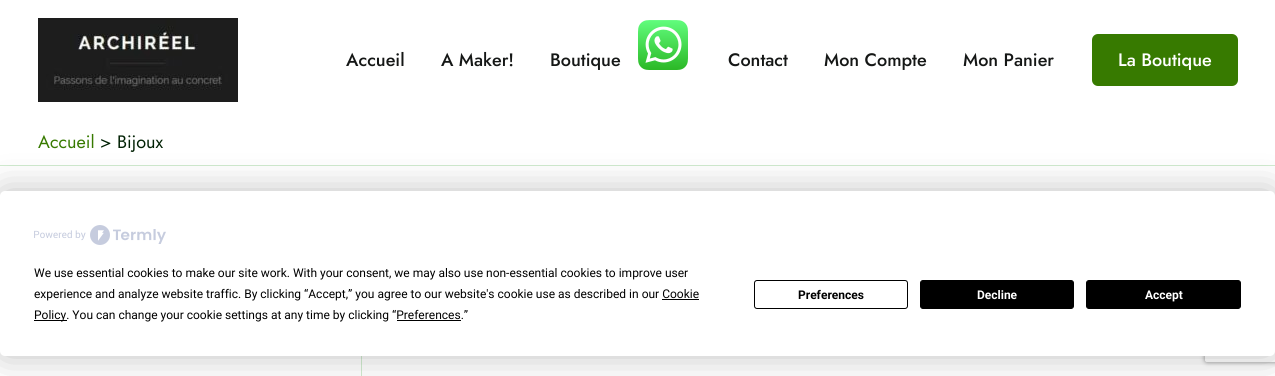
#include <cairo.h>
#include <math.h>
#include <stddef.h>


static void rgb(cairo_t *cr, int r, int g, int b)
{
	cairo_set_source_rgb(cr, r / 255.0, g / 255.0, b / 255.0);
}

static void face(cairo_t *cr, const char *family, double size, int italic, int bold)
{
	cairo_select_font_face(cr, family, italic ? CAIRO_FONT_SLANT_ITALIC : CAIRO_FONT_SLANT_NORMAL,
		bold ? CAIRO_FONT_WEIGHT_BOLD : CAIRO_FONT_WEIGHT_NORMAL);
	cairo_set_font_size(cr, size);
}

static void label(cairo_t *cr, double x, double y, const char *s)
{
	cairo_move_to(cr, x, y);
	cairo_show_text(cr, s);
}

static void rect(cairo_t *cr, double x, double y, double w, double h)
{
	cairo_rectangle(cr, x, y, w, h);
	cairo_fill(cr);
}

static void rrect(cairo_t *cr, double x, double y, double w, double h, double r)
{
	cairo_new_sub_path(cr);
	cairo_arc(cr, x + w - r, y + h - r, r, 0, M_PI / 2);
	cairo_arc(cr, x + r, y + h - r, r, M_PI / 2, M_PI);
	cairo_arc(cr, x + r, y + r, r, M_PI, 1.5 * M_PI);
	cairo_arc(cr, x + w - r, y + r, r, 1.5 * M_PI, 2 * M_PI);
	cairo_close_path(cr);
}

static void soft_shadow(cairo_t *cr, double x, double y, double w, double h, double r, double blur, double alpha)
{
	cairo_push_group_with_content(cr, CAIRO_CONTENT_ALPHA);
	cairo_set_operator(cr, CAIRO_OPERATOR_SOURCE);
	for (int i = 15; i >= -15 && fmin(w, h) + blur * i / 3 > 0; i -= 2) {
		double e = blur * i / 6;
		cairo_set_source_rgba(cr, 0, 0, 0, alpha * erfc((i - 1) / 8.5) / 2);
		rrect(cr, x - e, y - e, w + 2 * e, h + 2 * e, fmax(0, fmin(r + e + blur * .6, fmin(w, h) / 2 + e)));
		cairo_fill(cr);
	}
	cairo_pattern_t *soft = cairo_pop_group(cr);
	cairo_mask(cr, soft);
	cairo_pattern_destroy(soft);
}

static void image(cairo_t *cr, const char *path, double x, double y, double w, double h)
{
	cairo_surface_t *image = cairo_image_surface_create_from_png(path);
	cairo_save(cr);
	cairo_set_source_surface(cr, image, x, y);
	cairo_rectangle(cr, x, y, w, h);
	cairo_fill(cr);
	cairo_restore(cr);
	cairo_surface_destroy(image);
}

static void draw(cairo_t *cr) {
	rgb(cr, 255, 255, 255);
	cairo_paint(cr);
	image(cr, "image0.png", 638, 20, 50, 50);
	image(cr, "image1.png", 38, 18, 200, 84);
	face(cr, "Jost Medium", 18, 0, 0);
	rgb(cr, 21, 23, 22);
	label(cr, 346, 66, "Accueil");
	label(cr, 441, 66, "A Maker!");
	label(cr, 550, 66, "Boutique");
	label(cr, 728, 66, "Contact");
	label(cr, 824, 66, "Mon Compte");
	label(cr, 963, 66, "Mon Panier");
	rgb(cr, 55, 122, 0);
	rrect(cr, 1093, 35, 144, 50, 5);
	cairo_fill_preserve(cr);
	cairo_stroke(cr);
	rgb(cr, 255, 255, 255);
	label(cr, 1118, 66, "La Boutique");
	rgb(cr, 208, 235, 207);
	rect(cr, 0, 165, 1275, 1);
	face(cr, "Jost", 18, 0, 0);
	rgb(cr, 55, 122, 0);
	label(cr, 38, 148, "Accueil");
	rgb(cr, 1, 33, 4);
	label(cr, 100, 148, "> Bijoux");
	rgb(cr, 208, 235, 207);
	rect(cr, 361, 356, 1, 20);
	rgb(cr, 0, 0, 0);
	soft_shadow(cr, 0, 191, 1275, 165, 5, 17.5, 0.25);
	cairo_save(cr);
	cairo_set_fill_rule(cr, CAIRO_FILL_RULE_EVEN_ODD);
	cairo_new_path(cr);
	cairo_move_to(cr, 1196, 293);
	cairo_line_to(cr, 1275, 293);
	cairo_line_to(cr, 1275, 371);
	cairo_line_to(cr, 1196, 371);
	cairo_close_path(cr);
	cairo_move_to(cr, 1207, 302);
	cairo_line_to(cr, 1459, 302);
	cairo_curve_to(cr, 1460, 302, 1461, 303, 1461, 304);
	cairo_line_to(cr, 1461, 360);
	cairo_curve_to(cr, 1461, 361, 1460, 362, 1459, 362);
	cairo_line_to(cr, 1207, 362);
	cairo_curve_to(cr, 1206, 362, 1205, 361, 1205, 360);
	cairo_line_to(cr, 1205, 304);
	cairo_curve_to(cr, 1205, 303, 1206, 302, 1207, 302);
	cairo_close_path(cr);
	cairo_clip(cr);
	rgb(cr, 128, 128, 128);
	soft_shadow(cr, 1205, 302, 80, 60, 2, 2.5, 1);
	cairo_restore(cr);
	rgb(cr, 255, 255, 255);
	rrect(cr, 0, 191, 1275, 165, 5);
	cairo_fill(cr);
	image(cr, "image2.png", 34, 225, 132, 20);
	face(cr, "Roboto", 12, 0, 0);
	rgb(cr, 0, 0, 0);
	label(cr, 34, 277, "We use essential cookies to make our site work. With your consent, we may also use non-essential cookies to improve user");
	label(cr, 34, 298, "experience and analyze website traffic. By clicking “Accept,” you agree to our website's cookie use as described in our Cookie");
	rect(cr, 34, 320, 33, 1);
	label(cr, 34, 319, "Policy. You can change your cookie settings at any time by clicking “Preferences.”");
	rect(cr, 662, 299, 37, 1);
	rect(cr, 397, 320, 64, 1);
	rrect(cr, 754.5, 280.5, 153, 28, 2.5);
	cairo_set_line_width(cr, 1);
	cairo_stroke(cr);
	face(cr, "Roboto", 12, 0, 1);
	label(cr, 798, 299, "Preferences");
	rrect(cr, 920.5, 280.5, 153, 28, 2.5);
	cairo_fill_preserve(cr);
	cairo_stroke(cr);
	rgb(cr, 255, 255, 255);
	label(cr, 977, 299, "Decline");
	rgb(cr, 0, 0, 0);
	rrect(cr, 1086.5, 280.5, 154, 28, 2.5);
	cairo_fill_preserve(cr);
	cairo_stroke(cr);
	rgb(cr, 255, 255, 255);
	label(cr, 1145, 299, "Accept");
}

int main(void) {
	cairo_surface_t *surface = cairo_image_surface_create(CAIRO_FORMAT_RGB24, 1275, 376);
	cairo_t *cr = cairo_create(surface);
	cairo_font_options_t *options = cairo_font_options_create();
	cairo_font_options_set_hint_metrics(options, CAIRO_HINT_METRICS_OFF);
	cairo_font_options_set_hint_style(options, CAIRO_HINT_STYLE_NONE);
	cairo_set_font_options(cr, options);
	cairo_set_miter_limit(cr, 4);
	draw(cr);
	cairo_surface_write_to_png(surface, "render.png");
	cairo_font_options_destroy(options);
	cairo_destroy(cr);
	cairo_surface_destroy(surface);
	return 0;
}
